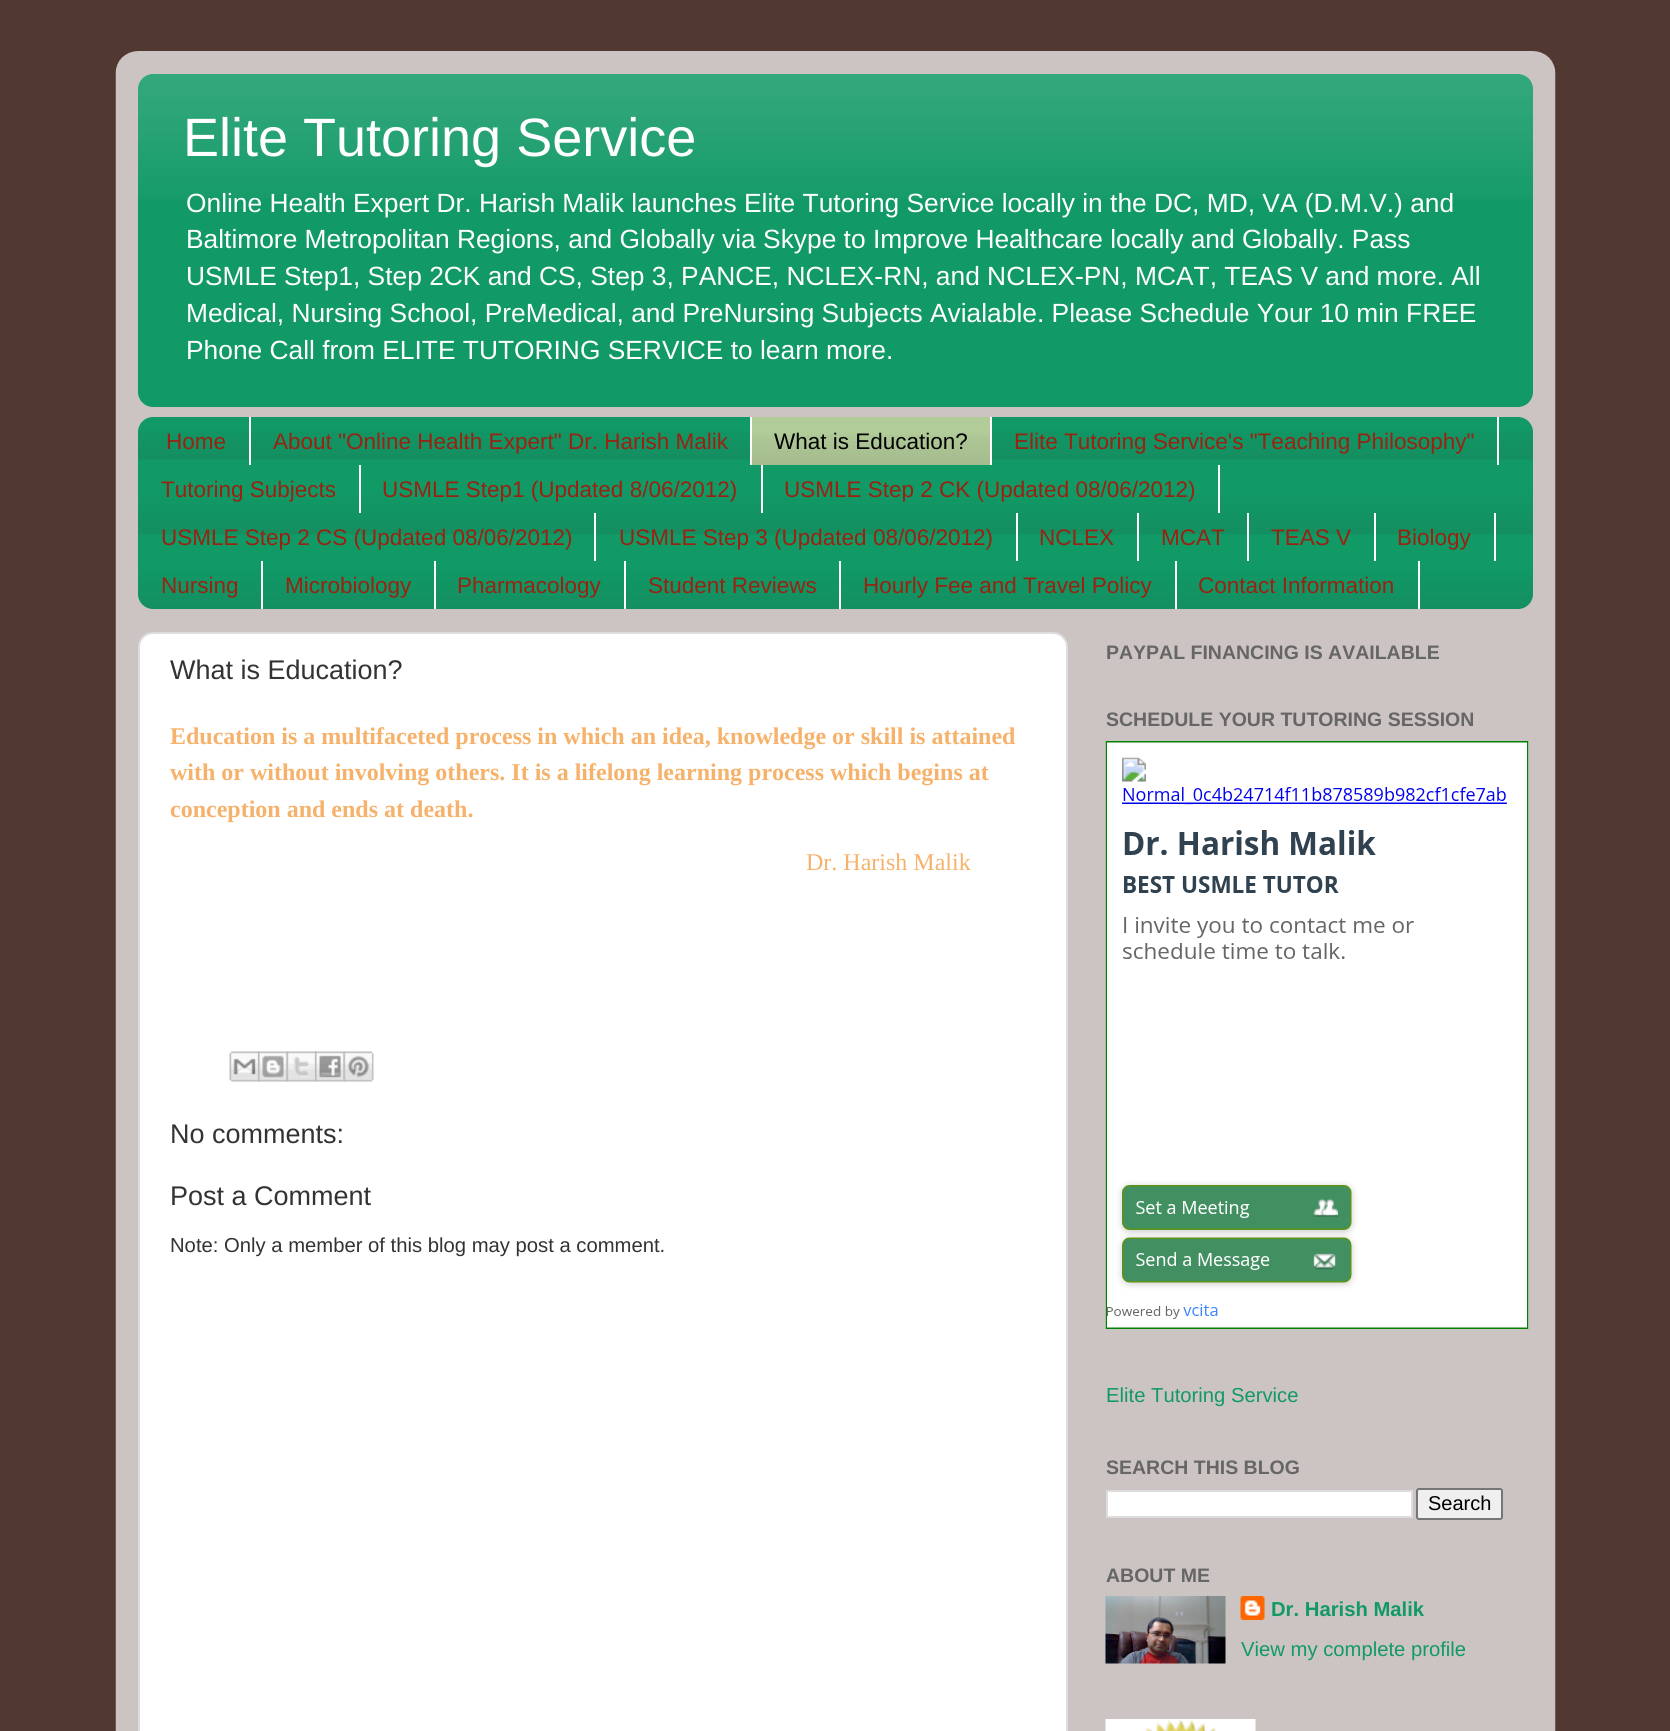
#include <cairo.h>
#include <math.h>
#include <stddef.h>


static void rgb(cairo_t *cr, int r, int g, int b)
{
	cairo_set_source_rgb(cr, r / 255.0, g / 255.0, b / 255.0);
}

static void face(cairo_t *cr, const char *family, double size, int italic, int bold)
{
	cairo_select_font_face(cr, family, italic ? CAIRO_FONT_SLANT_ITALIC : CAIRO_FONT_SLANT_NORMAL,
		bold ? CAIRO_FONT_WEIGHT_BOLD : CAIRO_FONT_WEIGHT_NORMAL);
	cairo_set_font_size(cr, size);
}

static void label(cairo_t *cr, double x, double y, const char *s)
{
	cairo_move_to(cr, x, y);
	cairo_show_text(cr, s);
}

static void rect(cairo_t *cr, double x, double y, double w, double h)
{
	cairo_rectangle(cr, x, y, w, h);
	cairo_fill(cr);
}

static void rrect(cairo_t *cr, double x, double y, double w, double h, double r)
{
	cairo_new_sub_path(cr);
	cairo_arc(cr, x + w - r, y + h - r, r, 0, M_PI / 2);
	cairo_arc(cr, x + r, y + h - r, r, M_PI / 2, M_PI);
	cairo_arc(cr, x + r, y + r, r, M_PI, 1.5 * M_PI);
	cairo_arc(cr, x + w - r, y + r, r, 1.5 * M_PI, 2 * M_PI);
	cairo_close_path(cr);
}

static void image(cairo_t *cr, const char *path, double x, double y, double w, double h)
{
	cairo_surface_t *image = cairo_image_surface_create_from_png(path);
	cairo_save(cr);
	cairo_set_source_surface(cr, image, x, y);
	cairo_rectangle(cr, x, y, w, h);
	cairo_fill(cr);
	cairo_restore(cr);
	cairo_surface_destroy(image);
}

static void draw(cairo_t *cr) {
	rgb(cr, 81, 56, 49);
	cairo_paint(cr);
	image(cr, "image0.png", 115, 51, 1441, 1680);
	rgb(cr, 17, 153, 102);
	rrect(cr, 138, 74, 1395, 333, 15);
	cairo_fill(cr);
	image(cr, "image1.png", 138, 74, 1395, 125);
	face(cr, "Liberation Sans", 54, 0, 0);
	rgb(cr, 255, 255, 255);
	label(cr, 183, 156, "Elite Tutoring Service");
	face(cr, "Liberation Sans", 26.35, 0, 0);
	label(cr, 186, 212, "Online Health Expert Dr. Harish Malik launches Elite Tutoring Service locally in the DC, MD, VA (D.M.V.) and");
	label(cr, 186, 248, "Baltimore Metropolitan Regions, and Globally via Skype to Improve Healthcare locally and Globally. Pass");
	label(cr, 186, 285, "USMLE Step1, Step 2CK and CS, Step 3, PANCE, NCLEX-RN, and NCLEX-PN, MCAT, TEAS V and more. All");
	label(cr, 186, 322, "Medical, Nursing School, PreMedical, and PreNursing Subjects Avialable. Please Schedule Your 10 min FREE");
	label(cr, 186, 359, "Phone Call from ELITE TUTORING SERVICE to learn more.");
	rgb(cr, 17, 153, 102);
	rrect(cr, 138, 417, 1395, 192, 15);
	cairo_fill(cr);
	image(cr, "image2.png", 138, 431, 1395, 178);
	rgb(cr, 255, 255, 255);
	rect(cr, 249, 417, 2, 48);
	face(cr, "Liberation Sans", 22.5, 0, 0);
	rgb(cr, 153, 34, 17);
	label(cr, 166, 449, "Home");
	rgb(cr, 255, 255, 255);
	rect(cr, 750, 417, 2, 48);
	rgb(cr, 153, 34, 17);
	label(cr, 273, 449, "About \"Online Health Expert\" Dr. Harish Malik");
	rgb(cr, 178, 204, 153);
	rect(cr, 752, 417, 238, 48);
	image(cr, "image3.png", 751, 435, 239, 30);
	rgb(cr, 255, 255, 255);
	rect(cr, 990, 417, 2, 48);
	rgb(cr, 0, 0, 0);
	label(cr, 774, 449, "What is Education?");
	rgb(cr, 255, 255, 255);
	rect(cr, 1497, 417, 2, 48);
	rgb(cr, 153, 34, 17);
	label(cr, 1014, 449, "Elite Tutoring Service's \"Teaching Philosophy\"");
	rgb(cr, 255, 255, 255);
	rect(cr, 359, 465, 2, 48);
	rgb(cr, 153, 34, 17);
	label(cr, 161, 497, "Tutoring Subjects");
	rgb(cr, 255, 255, 255);
	rect(cr, 761, 465, 2, 48);
	rgb(cr, 153, 34, 17);
	label(cr, 382, 497, "USMLE Step1 (Updated 8/06/2012)");
	rgb(cr, 255, 255, 255);
	rect(cr, 1218, 465, 2, 48);
	rgb(cr, 153, 34, 17);
	label(cr, 784, 497, "USMLE Step 2 CK (Updated 08/06/2012)");
	rgb(cr, 255, 255, 255);
	rect(cr, 594, 513, 2, 48);
	rgb(cr, 153, 34, 17);
	label(cr, 161, 545, "USMLE Step 2 CS (Updated 08/06/2012)");
	rgb(cr, 255, 255, 255);
	rect(cr, 1016, 513, 2, 48);
	rgb(cr, 153, 34, 17);
	label(cr, 619, 545, "USMLE Step 3 (Updated 08/06/2012)");
	rgb(cr, 255, 255, 255);
	rect(cr, 1137, 513, 2, 48);
	rgb(cr, 153, 34, 17);
	label(cr, 1039, 545, "NCLEX");
	rgb(cr, 255, 255, 255);
	rect(cr, 1247, 513, 2, 48);
	rgb(cr, 153, 34, 17);
	label(cr, 1161, 545, "MCAT");
	rgb(cr, 255, 255, 255);
	rect(cr, 1374, 513, 2, 48);
	rgb(cr, 153, 34, 17);
	label(cr, 1271, 545, "TEAS V");
	rgb(cr, 255, 255, 255);
	rect(cr, 1494, 513, 2, 48);
	rgb(cr, 153, 34, 17);
	label(cr, 1397, 545, "Biology");
	rgb(cr, 255, 255, 255);
	rect(cr, 261, 561, 2, 48);
	rgb(cr, 153, 34, 17);
	label(cr, 161, 593, "Nursing");
	rgb(cr, 255, 255, 255);
	rect(cr, 434, 561, 2, 48);
	rgb(cr, 153, 34, 17);
	label(cr, 285, 593, "Microbiology");
	rgb(cr, 255, 255, 255);
	rect(cr, 624, 561, 2, 48);
	rgb(cr, 153, 34, 17);
	label(cr, 457, 593, "Pharmacology");
	rgb(cr, 255, 255, 255);
	rect(cr, 839, 561, 2, 48);
	rgb(cr, 153, 34, 17);
	label(cr, 648, 593, "Student Reviews");
	rgb(cr, 255, 255, 255);
	rect(cr, 1175, 561, 2, 48);
	rgb(cr, 153, 34, 17);
	label(cr, 863, 593, "Hourly Fee and Travel Policy");
	rgb(cr, 255, 255, 255);
	rect(cr, 1418, 561, 2, 48);
	rgb(cr, 153, 34, 17);
	label(cr, 1198, 593, "Contact Information");
	rgb(cr, 255, 255, 255);
	rrect(cr, 139, 633, 928, 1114, 14);
	cairo_fill_preserve(cr);
	rgb(cr, 221, 221, 221);
	cairo_stroke(cr);
	face(cr, "Liberation Sans", 27, 0, 0);
	rgb(cr, 51, 51, 51);
	label(cr, 170, 679, "What is Education?");
	face(cr, "Liberation Serif", 24, 0, 1);
	rgb(cr, 246, 178, 107);
	label(cr, 170, 744, "Education is a multifaceted process in which an idea, knowledge or skill is attained");
	label(cr, 170, 780, "with or without involving others. It is a lifelong learning process which begins at");
	label(cr, 170, 817, "conception and ends at death.");
	face(cr, "Liberation Serif", 24, 0, 0);
	label(cr, 806, 870, "Dr. Harish Malik");
	image(cr, "image4.png", 229, 1051, 31, 31);
	image(cr, "image5.png", 258, 1051, 30, 31);
	image(cr, "image6.png", 286, 1051, 31, 31);
	image(cr, "image7.png", 315, 1051, 30, 31);
	image(cr, "image8.png", 343, 1051, 31, 31);
	face(cr, "Liberation Sans", 27, 0, 0);
	rgb(cr, 51, 51, 51);
	label(cr, 170, 1143, "No comments:");
	label(cr, 170, 1205, "Post a Comment");
	face(cr, "Liberation Sans", 20.25, 0, 0);
	label(cr, 170, 1252, "Note: Only a member of this blog may post a comment.");
	face(cr, "Liberation Sans", 19.5, 0, 1);
	rgb(cr, 102, 102, 102);
	label(cr, 1106, 659, "PAYPAL FINANCING IS AVAILABLE");
	label(cr, 1106, 726, "SCHEDULE YOUR TUTORING SESSION");
	image(cr, "image9.png", 1105, 741, 424, 588);
	face(cr, "Liberation Sans", 20.25, 0, 0);
	rgb(cr, 17, 153, 102);
	label(cr, 1106, 1402, "Elite Tutoring Service");
	face(cr, "Liberation Sans", 19.5, 0, 1);
	rgb(cr, 102, 102, 102);
	label(cr, 1106, 1474, "SEARCH THIS BLOG");
	rgb(cr, 255, 255, 255);
	cairo_rectangle(cr, 1107, 1491, 305, 26);
	cairo_fill_preserve(cr);
	rgb(cr, 221, 221, 221);
	cairo_stroke(cr);
	rgb(cr, 239, 239, 239);
	rrect(cr, 1417, 1489, 85, 30, 2);
	cairo_fill_preserve(cr);
	rgb(cr, 118, 118, 118);
	cairo_stroke(cr);
	face(cr, "Liberation Sans", 20, 0, 0);
	rgb(cr, 0, 0, 0);
	label(cr, 1428, 1510, "Search");
	face(cr, "Liberation Sans", 19.5, 0, 1);
	rgb(cr, 102, 102, 102);
	label(cr, 1106, 1582, "ABOUT ME");
	image(cr, "image10.png", 1105, 1596, 121, 68);
	image(cr, "image11.png", 1240, 1596, 25, 24);
	face(cr, "Liberation Sans", 20.25, 0, 1);
	rgb(cr, 17, 153, 102);
	label(cr, 1271, 1616, "Dr. Harish Malik");
	face(cr, "Liberation Sans", 20.25, 0, 0);
	label(cr, 1241, 1656, "View my complete profile");
	image(cr, "image12.png", 1105, 1719, 151, 12);
}

int main(void) {
	cairo_surface_t *surface = cairo_image_surface_create(CAIRO_FORMAT_RGB24, 1670, 1731);
	cairo_t *cr = cairo_create(surface);
	cairo_font_options_t *options = cairo_font_options_create();
	cairo_font_options_set_hint_metrics(options, CAIRO_HINT_METRICS_OFF);
	cairo_font_options_set_hint_style(options, CAIRO_HINT_STYLE_NONE);
	cairo_set_font_options(cr, options);
	cairo_set_miter_limit(cr, 4);
	draw(cr);
	cairo_surface_write_to_png(surface, "render.png");
	cairo_font_options_destroy(options);
	cairo_destroy(cr);
	cairo_surface_destroy(surface);
	return 0;
}
